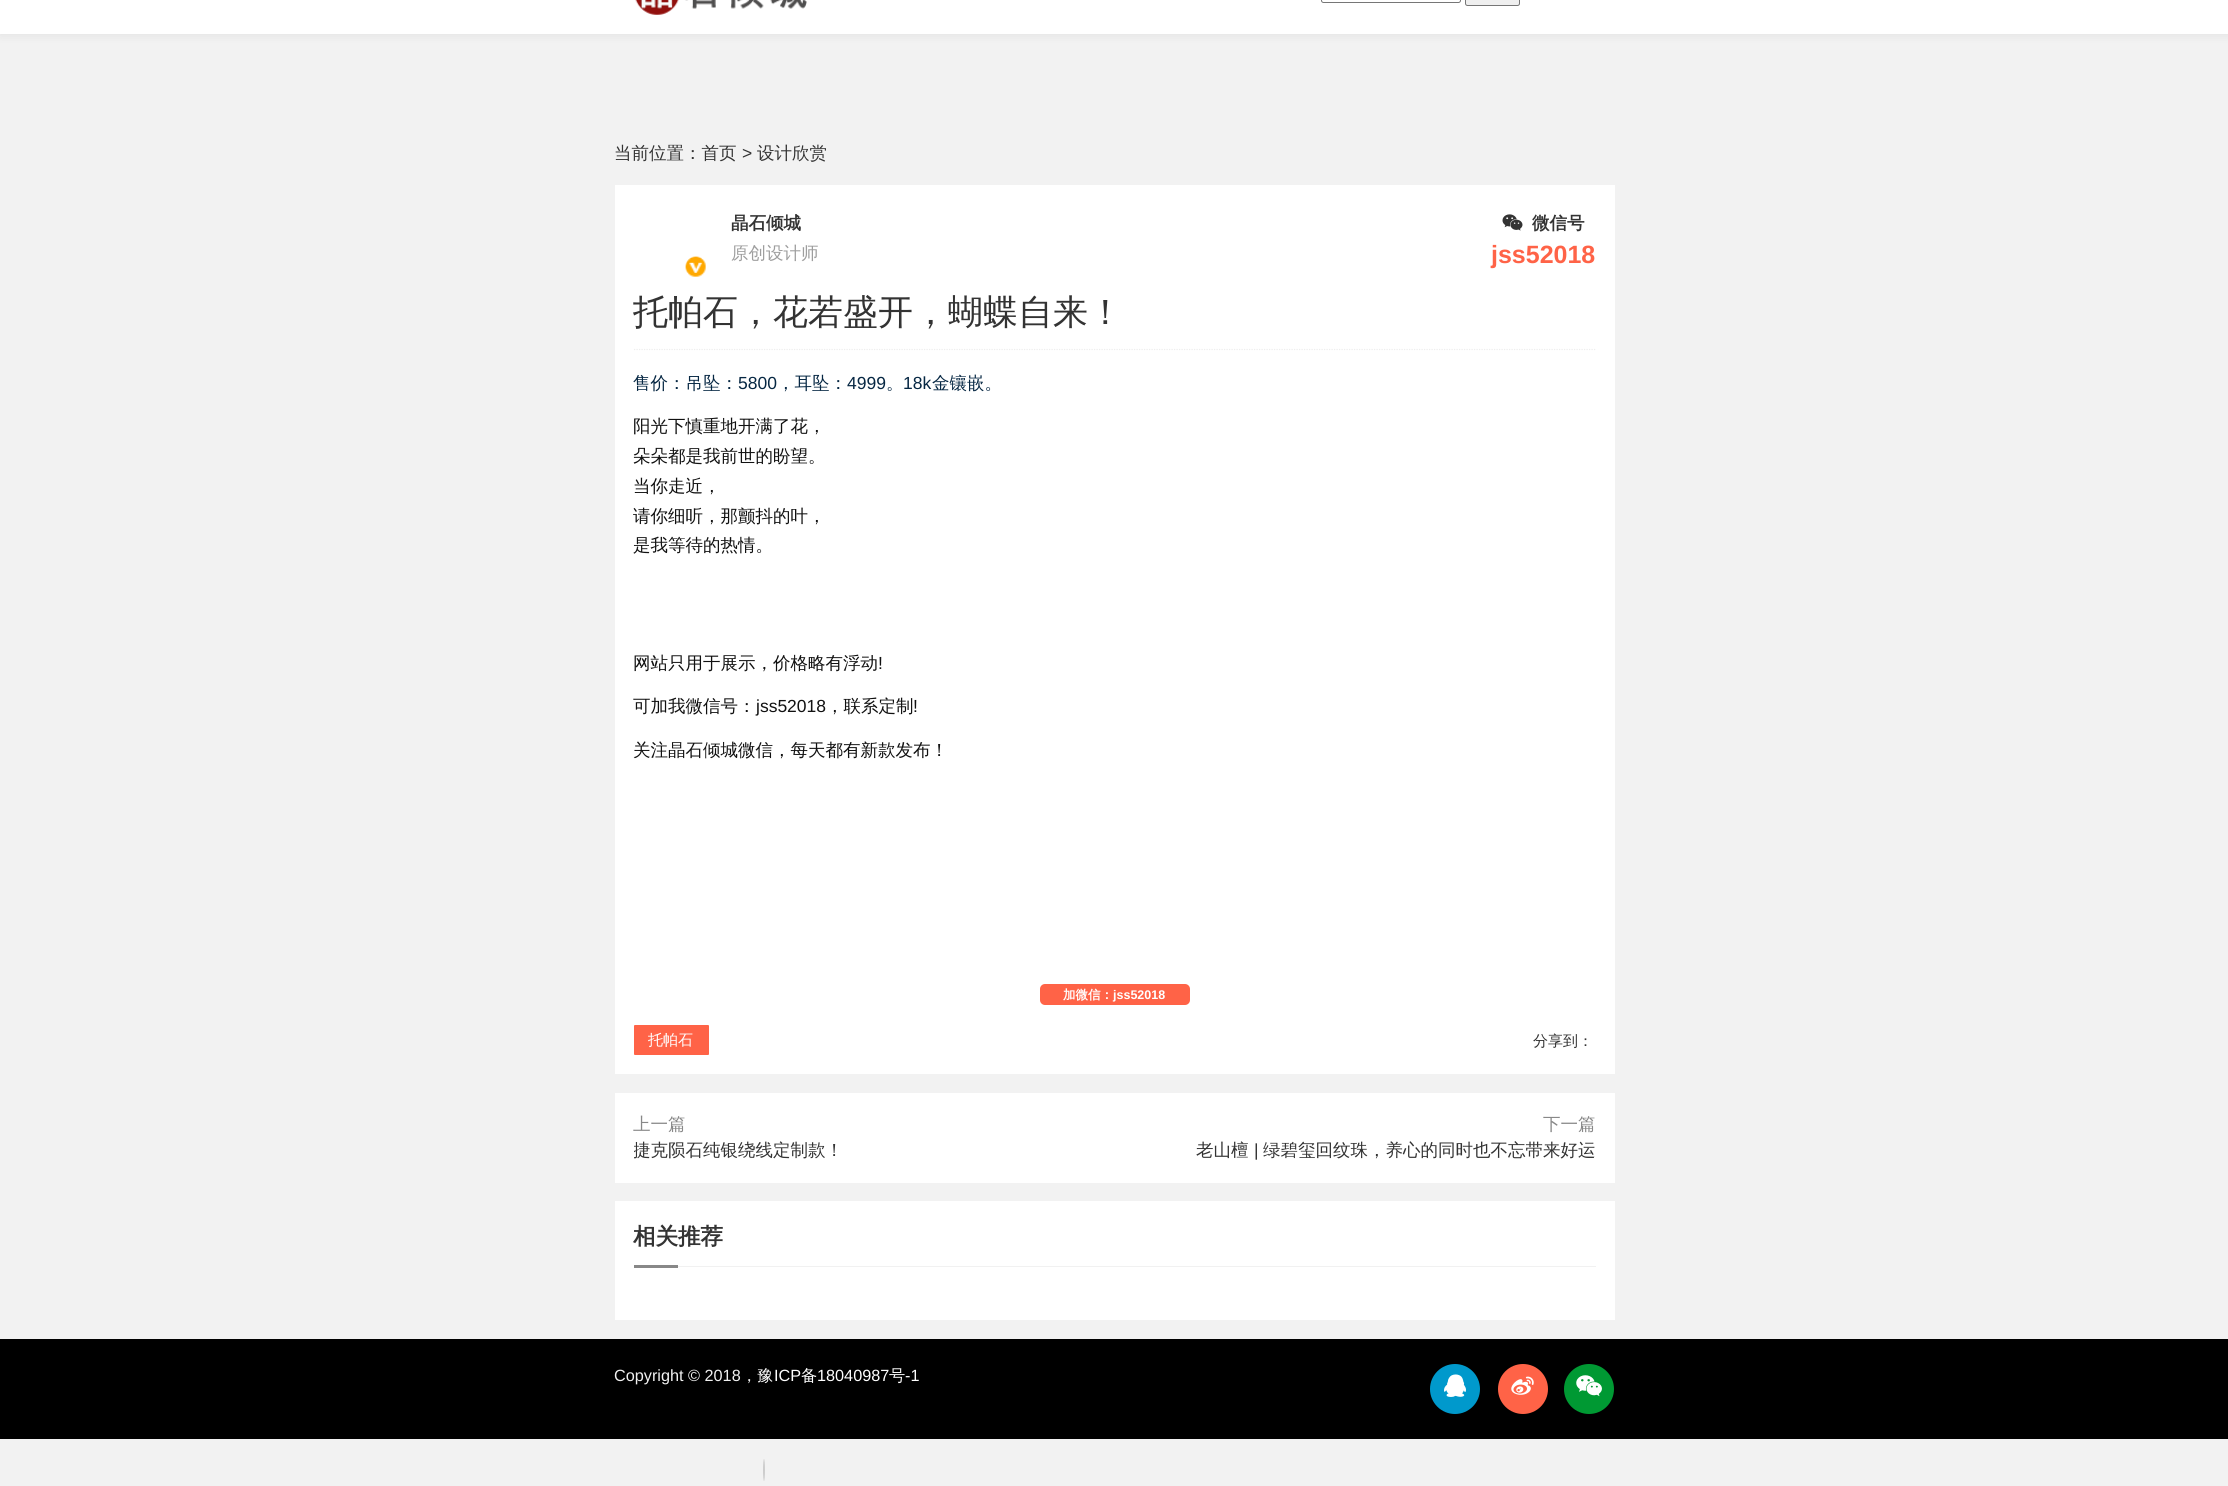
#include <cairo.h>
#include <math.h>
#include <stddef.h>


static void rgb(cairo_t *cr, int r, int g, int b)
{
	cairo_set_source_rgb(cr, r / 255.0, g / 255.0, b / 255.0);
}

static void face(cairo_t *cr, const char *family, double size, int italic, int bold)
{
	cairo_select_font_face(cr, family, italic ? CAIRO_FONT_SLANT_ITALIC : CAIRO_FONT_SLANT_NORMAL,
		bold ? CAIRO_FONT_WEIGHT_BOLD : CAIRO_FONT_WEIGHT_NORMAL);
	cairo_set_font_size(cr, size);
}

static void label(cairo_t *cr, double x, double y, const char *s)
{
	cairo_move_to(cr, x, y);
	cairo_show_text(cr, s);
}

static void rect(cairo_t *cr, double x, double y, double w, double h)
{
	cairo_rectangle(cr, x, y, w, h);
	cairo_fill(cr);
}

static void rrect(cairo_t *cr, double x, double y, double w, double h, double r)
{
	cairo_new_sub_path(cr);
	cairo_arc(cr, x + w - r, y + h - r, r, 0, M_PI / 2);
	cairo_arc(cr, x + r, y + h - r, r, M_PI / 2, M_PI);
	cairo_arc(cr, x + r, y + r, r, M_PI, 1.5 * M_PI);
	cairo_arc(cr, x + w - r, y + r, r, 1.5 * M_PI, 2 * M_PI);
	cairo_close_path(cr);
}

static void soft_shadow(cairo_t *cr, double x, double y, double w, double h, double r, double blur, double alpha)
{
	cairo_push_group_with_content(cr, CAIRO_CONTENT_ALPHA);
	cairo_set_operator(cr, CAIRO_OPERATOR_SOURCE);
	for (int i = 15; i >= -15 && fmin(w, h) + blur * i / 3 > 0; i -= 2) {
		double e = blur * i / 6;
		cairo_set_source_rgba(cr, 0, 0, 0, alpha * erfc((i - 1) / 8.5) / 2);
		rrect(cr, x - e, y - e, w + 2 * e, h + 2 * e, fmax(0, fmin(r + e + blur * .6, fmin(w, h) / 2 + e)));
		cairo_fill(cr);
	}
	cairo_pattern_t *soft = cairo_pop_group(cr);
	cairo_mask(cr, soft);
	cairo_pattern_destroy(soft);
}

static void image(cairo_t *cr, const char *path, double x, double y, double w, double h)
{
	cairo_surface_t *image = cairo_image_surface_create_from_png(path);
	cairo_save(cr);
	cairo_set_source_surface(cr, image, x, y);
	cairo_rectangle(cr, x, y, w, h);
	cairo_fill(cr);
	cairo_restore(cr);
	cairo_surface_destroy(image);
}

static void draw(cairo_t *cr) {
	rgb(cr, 242, 242, 242);
	cairo_paint(cr);
	rgb(cr, 0, 0, 0);
	soft_shadow(cr, 0, -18, 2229, 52, 0, 6, 0.08);
	rgb(cr, 255, 255, 255);
	rect(cr, 0, 0, 2228, 34);
	image(cr, "image0.png", 635, 0, 172, 15);
	rrect(cr, 1321.5, -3.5, 139, 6, 2);
	rgb(cr, 118, 118, 118);
	cairo_set_line_width(cr, 1);
	cairo_stroke(cr);
	rgb(cr, 239, 239, 239);
	rrect(cr, 1465.5, -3.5, 54, 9, 2);
	cairo_fill_preserve(cr);
	rgb(cr, 118, 118, 118);
	cairo_stroke(cr);
	face(cr, "WenQuanYi Zen Hei Medium", 17.5, 0, 0);
	rgb(cr, 51, 51, 51);
	label(cr, 614, 159, "当前位置：首页");
	face(cr, "Liberation Sans", 17.5, 0, 0);
	label(cr, 742, 159, ">");
	face(cr, "WenQuanYi Zen Hei Medium", 17.5, 0, 0);
	label(cr, 757, 159, "设计欣赏");
	rgb(cr, 255, 255, 255);
	rect(cr, 615, 185, 1000, 889);
	cairo_new_path(cr);
	cairo_move_to(cr, 634, 349.5);
	cairo_line_to(cr, 1596, 349.5);
	rgb(cr, 238, 238, 238);
	cairo_set_line_width(cr, 1.2);
	cairo_set_dash(cr, (double[]){1.25, 1.25}, 2, 0);
	cairo_stroke(cr);
	image(cr, "image1.png", 685, 256, 21, 21);
	cairo_arc(cr, 696, 267, 11.5, 0, 2 * M_PI);
	rgb(cr, 255, 255, 255);
	cairo_set_line_width(cr, 1);
	cairo_set_dash(cr, NULL, 0, 0);
	cairo_stroke(cr);
	face(cr, "WenQuanYi Zen Hei", 17.5, 0, 1);
	rgb(cr, 51, 51, 51);
	label(cr, 731, 229, "晶石倾城");
	face(cr, "WenQuanYi Zen Hei Medium", 17.5, 0, 0);
	rgb(cr, 158, 158, 158);
	label(cr, 731, 259, "原创设计师");
	image(cr, "image2.png", 1502, 214, 21, 17);
	face(cr, "WenQuanYi Zen Hei", 17.5, 0, 1);
	rgb(cr, 51, 51, 51);
	label(cr, 1532, 229, "微信号");
	face(cr, "Liberation Sans", 25, 0, 1);
	rgb(cr, 255, 99, 71);
	label(cr, 1491, 263, "jss52018");
	face(cr, "WenQuanYi Zen Hei Medium", 35, 0, 0);
	rgb(cr, 51, 51, 51);
	label(cr, 633, 324, "托帕石，花若盛开，蝴蝶自来！");
	face(cr, "WenQuanYi Zen Hei Medium", 17.5, 0, 0);
	rgb(cr, 6, 39, 67);
	label(cr, 633, 389, "售价：吊坠：");
	face(cr, "Liberation Sans", 17.5, 0, 0);
	label(cr, 738, 389, "5800");
	face(cr, "WenQuanYi Zen Hei Medium", 17.5, 0, 0);
	label(cr, 777, 389, "，耳坠：");
	face(cr, "Liberation Sans", 17.5, 0, 0);
	label(cr, 847, 389, "4999");
	face(cr, "WenQuanYi Zen Hei Medium", 17.5, 0, 0);
	label(cr, 886, 389, "。");
	face(cr, "Liberation Sans", 17.5, 0, 0);
	label(cr, 903, 389, "18k");
	face(cr, "WenQuanYi Zen Hei Medium", 17.5, 0, 0);
	label(cr, 932, 389, "金镶嵌。");
	rgb(cr, 17, 17, 17);
	label(cr, 633, 432, "阳光下慎重地开满了花，");
	label(cr, 633, 462, "朵朵都是我前世的盼望。");
	label(cr, 633, 492, "当你走近，");
	label(cr, 633, 522, "请你细听，那颤抖的叶，");
	label(cr, 633, 551, "是我等待的热情。");
	label(cr, 633, 669, "网站只用于展示，价格略有浮动");
	face(cr, "Liberation Sans", 17.5, 0, 0);
	label(cr, 878, 669, "!");
	face(cr, "WenQuanYi Zen Hei Medium", 17.5, 0, 0);
	label(cr, 633, 712, "可加我微信号：");
	face(cr, "Liberation Sans", 17.5, 0, 0);
	label(cr, 756, 712, "jss52018");
	face(cr, "WenQuanYi Zen Hei Medium", 17.5, 0, 0);
	label(cr, 826, 712, "，联系定制");
	face(cr, "Liberation Sans", 17.5, 0, 0);
	label(cr, 913, 712, "!");
	face(cr, "WenQuanYi Zen Hei Medium", 17.5, 0, 0);
	label(cr, 633, 756, "关注晶石倾城微信，每天都有新款发布！");
	rgb(cr, 255, 99, 71);
	rrect(cr, 1040, 984, 150, 21, 5);
	cairo_fill(cr);
	face(cr, "WenQuanYi Zen Hei", 12.5, 0, 1);
	rgb(cr, 255, 255, 255);
	label(cr, 1063, 999, "加微信：");
	face(cr, "Liberation Sans", 12.5, 0, 1);
	label(cr, 1113, 999, "jss52018");
	rgb(cr, 255, 99, 71);
	rrect(cr, 634, 1025, 75, 30, 1);
	cairo_fill(cr);
	face(cr, "WenQuanYi Zen Hei Medium", 15, 0, 0);
	rgb(cr, 255, 255, 255);
	label(cr, 648, 1045, "托帕石");
	rgb(cr, 51, 51, 51);
	label(cr, 1533, 1046, "分享到：");
	rgb(cr, 255, 255, 255);
	rect(cr, 615, 1093, 1000, 90);
	face(cr, "WenQuanYi Zen Hei Medium", 17.5, 0, 0);
	rgb(cr, 136, 136, 136);
	label(cr, 633, 1130, "上一篇");
	cairo_save(cr);
	cairo_rectangle(cr, 634, 1138, 472, 26);
	cairo_clip(cr);
	rgb(cr, 51, 51, 51);
	label(cr, 633, 1156, "捷克陨石纯银绕线定制款！");
	cairo_restore(cr);
	label(cr, 1543, 1130, "下一篇");
	rgb(cr, 51, 51, 51);
	label(cr, 1196, 1156, "老山檀");
	face(cr, "Liberation Sans", 17.5, 0, 0);
	label(cr, 1254, 1156, "|");
	face(cr, "WenQuanYi Zen Hei Medium", 17.5, 0, 0);
	label(cr, 1263, 1156, "绿碧玺回纹珠，养心的同时也不忘带来好运");
	rgb(cr, 255, 255, 255);
	rect(cr, 615, 1201, 1000, 119);
	rgb(cr, 241, 241, 241);
	rect(cr, 678, 1266, 918, 1);
	face(cr, "WenQuanYi Zen Hei", 22.5, 0, 1);
	rgb(cr, 51, 51, 51);
	label(cr, 633, 1244, "相关推荐");
	rgb(cr, 136, 136, 136);
	rect(cr, 634, 1265, 44, 3);
	rgb(cr, 0, 0, 0);
	rect(cr, 0, 1339, 2228, 100);
	face(cr, "Liberation Sans", 16.25, 0, 0);
	rgb(cr, 241, 241, 241);
	label(cr, 614, 1381, "Copyright © 2018");
	face(cr, "WenQuanYi Zen Hei Medium", 16.25, 0, 0);
	rgb(cr, 255, 255, 255);
	label(cr, 757, 1381, "豫");
	face(cr, "Liberation Sans", 16.25, 0, 0);
	label(cr, 774, 1381, "ICP");
	face(cr, "WenQuanYi Zen Hei Medium", 16.25, 0, 0);
	label(cr, 801, 1381, "备");
	face(cr, "Liberation Sans", 16.25, 0, 0);
	label(cr, 817, 1381, "18040987");
	face(cr, "WenQuanYi Zen Hei Medium", 16.25, 0, 0);
	label(cr, 889, 1381, "号");
	face(cr, "Liberation Sans", 16.25, 0, 0);
	label(cr, 905, 1381, "-1");
	face(cr, "WenQuanYi Zen Hei Medium", 16.25, 0, 0);
	rgb(cr, 241, 241, 241);
	label(cr, 741, 1381, "，");
	rgb(cr, 0, 153, 204);
	cairo_new_path(cr);
	cairo_arc(cr, 1455, 1389, 25, 0, 2 * M_PI);
	cairo_fill(cr);
	image(cr, "image3.png", 1444, 1374, 22, 23);
	rgb(cr, 255, 99, 71);
	cairo_arc(cr, 1523, 1389, 25, 0, 2 * M_PI);
	cairo_fill(cr);
	image(cr, "image4.png", 1511, 1376, 23, 19);
	rgb(cr, 0, 153, 51);
	cairo_arc(cr, 1589, 1389, 25, 0, 2 * M_PI);
	cairo_fill(cr);
	image(cr, "image5.png", 1576, 1375, 26, 22);
	rgb(cr, 204, 204, 204);
	cairo_new_path(cr);
	cairo_move_to(cr, 764, 1459);
	cairo_curve_to(cr, 764.5, 1459, 765, 1464, 765, 1470);
	cairo_curve_to(cr, 765, 1476, 764.5, 1481, 764, 1481);
	cairo_curve_to(cr, 763.5, 1481, 763, 1476, 763, 1470);
	cairo_curve_to(cr, 763, 1464, 763.5, 1459, 764, 1459);
	cairo_close_path(cr);
	cairo_fill(cr);
}

int main(void) {
	cairo_surface_t *surface = cairo_image_surface_create(CAIRO_FORMAT_RGB24, 2228, 1486);
	cairo_t *cr = cairo_create(surface);
	cairo_font_options_t *options = cairo_font_options_create();
	cairo_font_options_set_hint_metrics(options, CAIRO_HINT_METRICS_OFF);
	cairo_font_options_set_hint_style(options, CAIRO_HINT_STYLE_NONE);
	cairo_set_font_options(cr, options);
	cairo_set_miter_limit(cr, 4);
	draw(cr);
	cairo_surface_write_to_png(surface, "render.png");
	cairo_font_options_destroy(options);
	cairo_destroy(cr);
	cairo_surface_destroy(surface);
	return 0;
}
